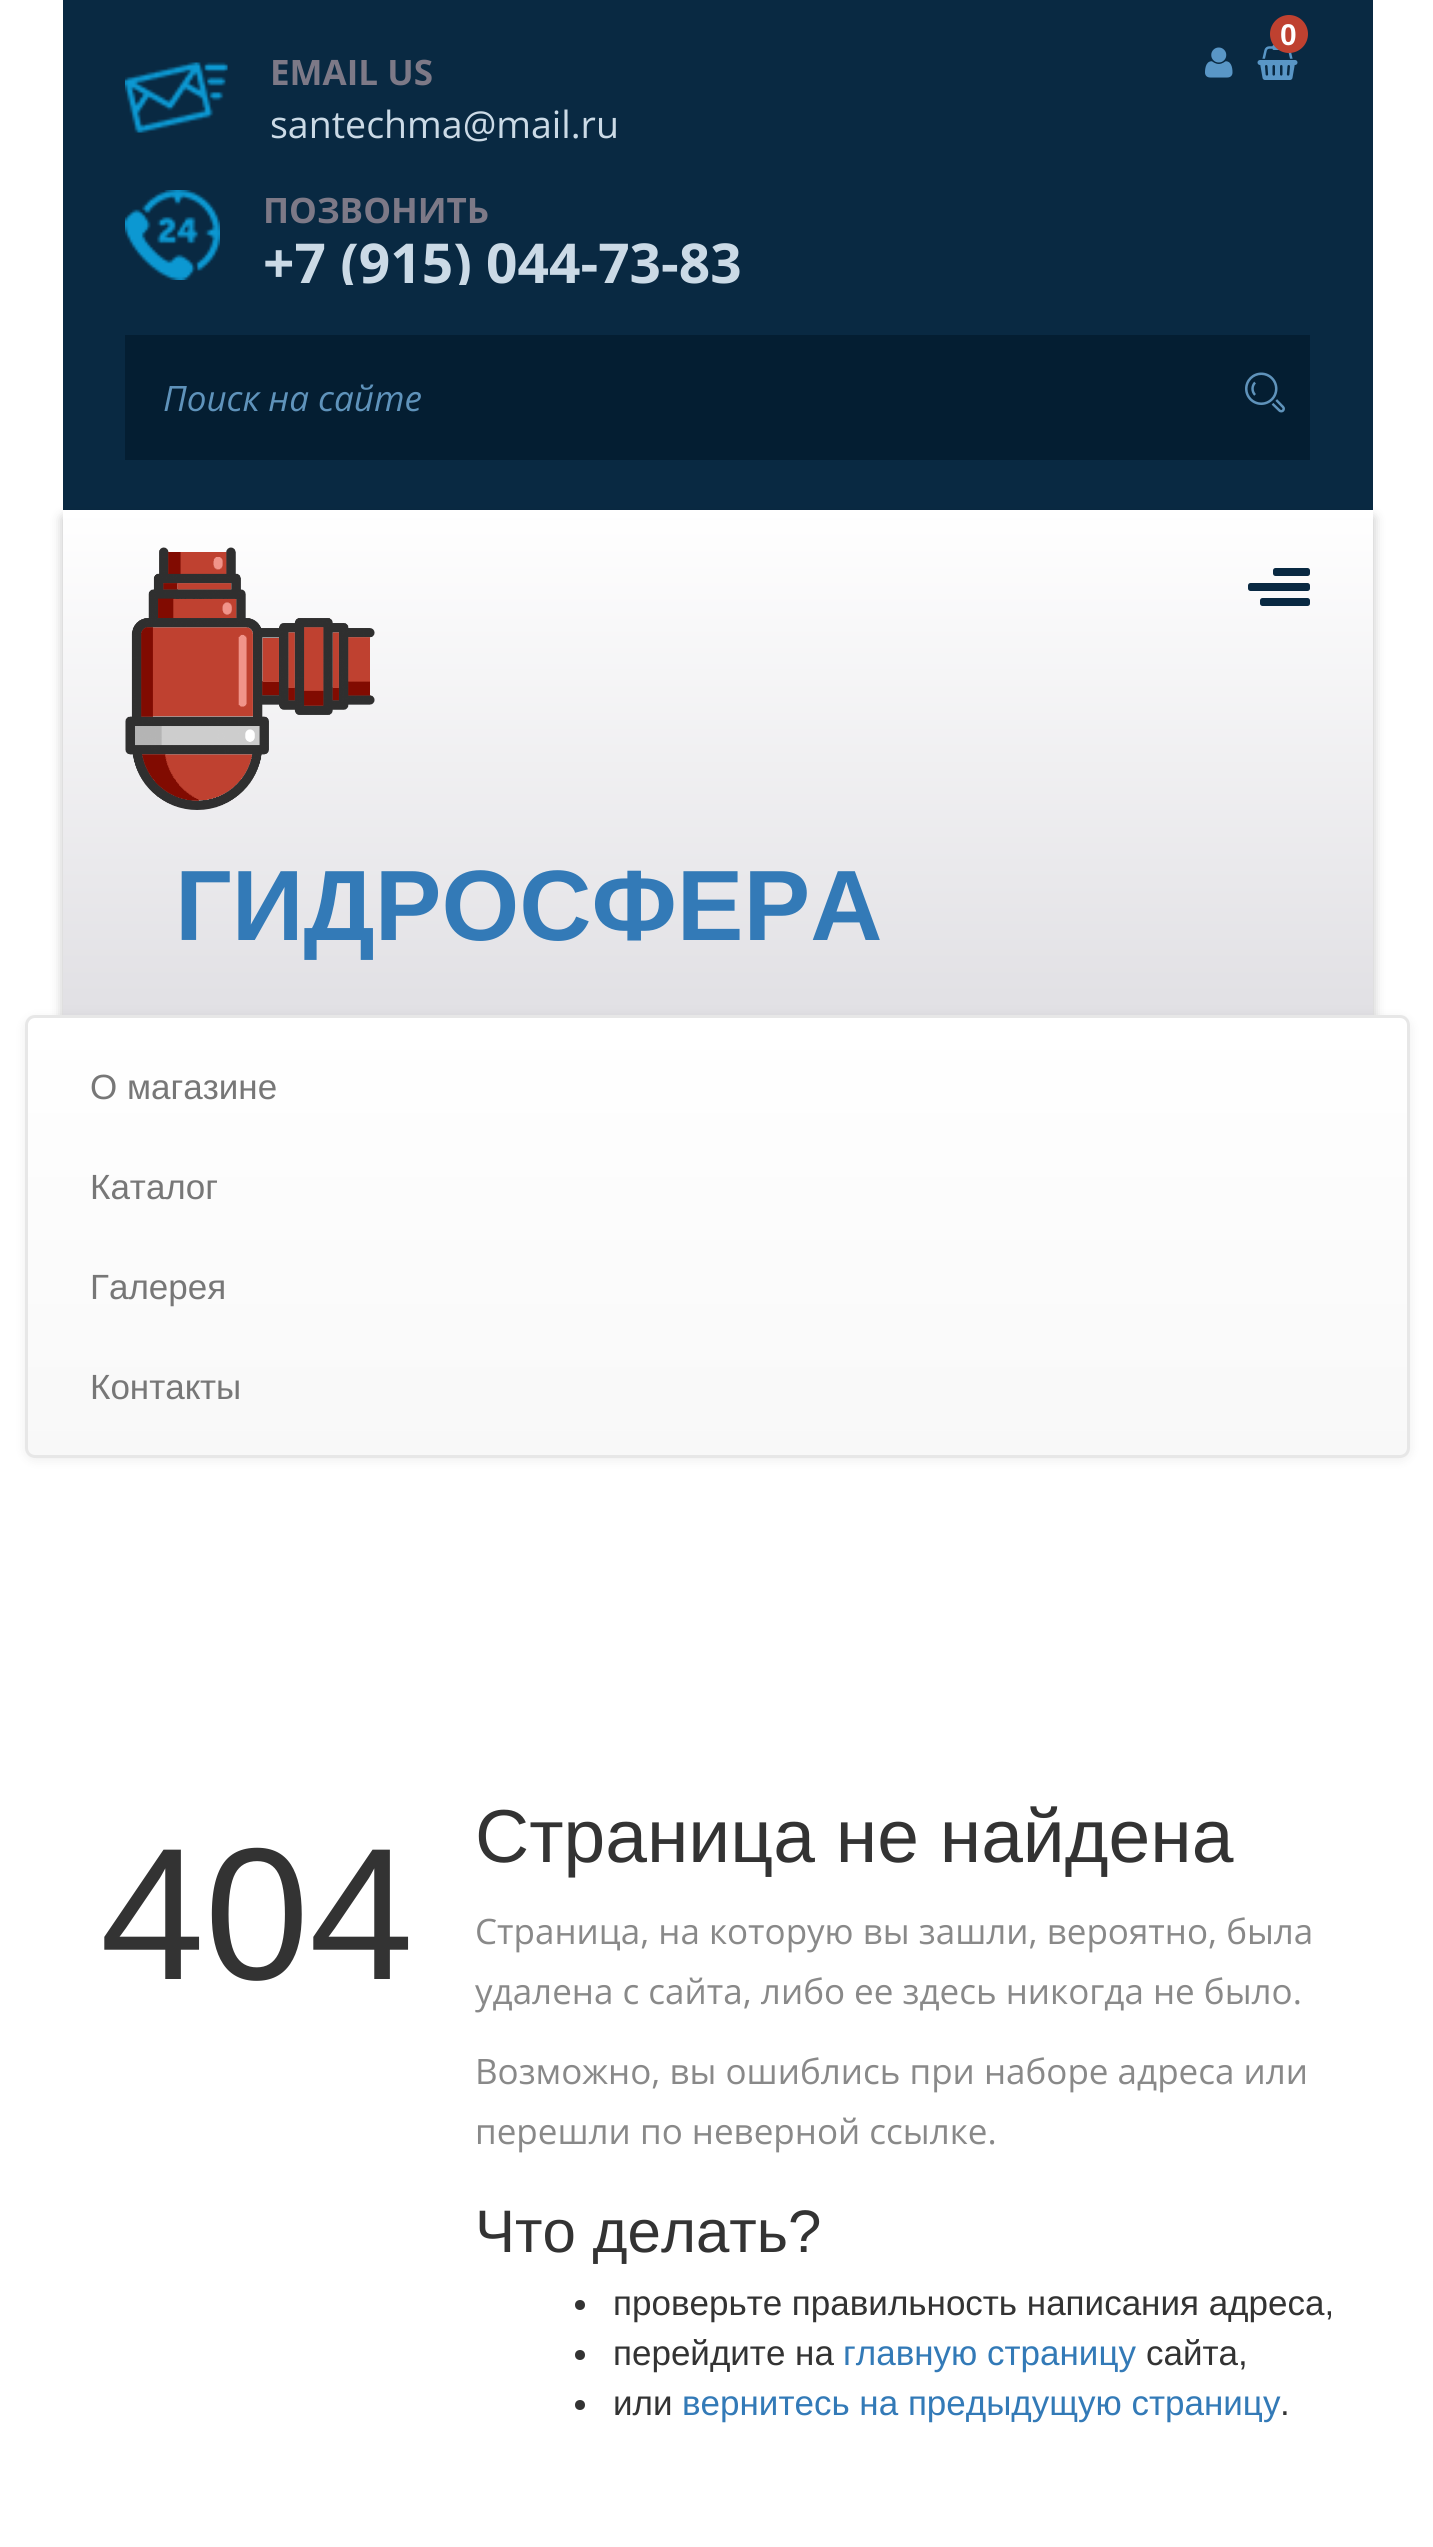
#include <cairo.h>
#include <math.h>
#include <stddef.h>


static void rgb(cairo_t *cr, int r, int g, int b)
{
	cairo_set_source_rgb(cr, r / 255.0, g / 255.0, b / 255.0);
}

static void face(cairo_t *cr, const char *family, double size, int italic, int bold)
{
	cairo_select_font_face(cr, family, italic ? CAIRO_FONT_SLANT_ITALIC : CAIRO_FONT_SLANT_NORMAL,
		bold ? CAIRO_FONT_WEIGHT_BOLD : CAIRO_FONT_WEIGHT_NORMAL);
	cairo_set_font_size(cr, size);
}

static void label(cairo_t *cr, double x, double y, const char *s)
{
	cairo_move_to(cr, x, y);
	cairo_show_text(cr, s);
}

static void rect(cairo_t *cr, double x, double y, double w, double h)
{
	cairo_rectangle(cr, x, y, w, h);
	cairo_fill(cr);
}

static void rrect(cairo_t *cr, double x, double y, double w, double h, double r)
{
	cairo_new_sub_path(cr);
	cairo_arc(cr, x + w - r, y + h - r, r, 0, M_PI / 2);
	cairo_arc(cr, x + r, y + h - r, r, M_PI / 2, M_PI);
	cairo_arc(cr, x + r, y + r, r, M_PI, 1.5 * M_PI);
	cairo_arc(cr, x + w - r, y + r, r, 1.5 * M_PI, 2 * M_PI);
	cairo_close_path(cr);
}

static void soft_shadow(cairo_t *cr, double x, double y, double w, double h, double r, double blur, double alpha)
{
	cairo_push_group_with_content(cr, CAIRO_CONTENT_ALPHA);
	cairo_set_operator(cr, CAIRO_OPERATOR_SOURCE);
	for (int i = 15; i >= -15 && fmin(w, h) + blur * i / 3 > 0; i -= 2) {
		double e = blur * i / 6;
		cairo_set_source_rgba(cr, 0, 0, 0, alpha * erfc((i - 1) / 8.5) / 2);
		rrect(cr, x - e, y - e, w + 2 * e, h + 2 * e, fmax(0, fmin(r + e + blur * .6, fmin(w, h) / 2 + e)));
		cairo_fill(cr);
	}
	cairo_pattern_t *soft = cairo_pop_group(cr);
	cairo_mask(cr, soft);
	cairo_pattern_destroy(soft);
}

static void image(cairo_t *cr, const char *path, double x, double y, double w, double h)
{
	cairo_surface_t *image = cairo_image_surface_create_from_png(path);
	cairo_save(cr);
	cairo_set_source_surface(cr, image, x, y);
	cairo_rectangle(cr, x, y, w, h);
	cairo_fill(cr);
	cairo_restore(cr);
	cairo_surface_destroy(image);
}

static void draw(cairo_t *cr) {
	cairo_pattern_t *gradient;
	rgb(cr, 255, 255, 255);
	cairo_paint(cr);
	rgb(cr, 9, 41, 66);
	rect(cr, 63, 0, 1310, 510);
	image(cr, "image0.png", 1257, 45, 41, 35);
	rgb(cr, 191, 65, 48);
	cairo_arc(cr, 1289, 34, 19, 0, 2 * M_PI);
	cairo_fill(cr);
	face(cr, "Liberation Sans", 30, 0, 1);
	rgb(cr, 255, 255, 255);
	label(cr, 1280, 45, "0");
	image(cr, "image1.png", 1205, 47, 28, 31);
	image(cr, "image2.png", 125, 62, 103, 71);
	face(cr, "Open Sans", 35, 0, 1);
	rgb(cr, 125, 121, 135);
	label(cr, 270, 85, "EMAIL US");
	face(cr, "Open Sans", 37.5, 0, 0);
	rgb(cr, 203, 218, 230);
	label(cr, 270, 138, "santechma@mail.ru");
	image(cr, "image3.png", 125, 190, 95, 90);
	face(cr, "Open Sans", 35, 0, 1);
	rgb(cr, 125, 121, 135);
	label(cr, 263, 223, "ПОЗВОНИТЬ");
	cairo_save(cr);
	cairo_rectangle(cr, 263, 185, 477, 100);
	cairo_clip(cr);
	face(cr, "Open Sans", 55, 0, 1);
	rgb(cr, 203, 218, 230);
	label(cr, 263, 283, "+7 (915) 044-73-83");
	cairo_restore(cr);
	rgb(cr, 4, 30, 50);
	rect(cr, 125, 335, 1185, 125);
	face(cr, "Open Sans", 35, 1, 0);
	rgb(cr, 95, 147, 187);
	label(cr, 163, 411, "Поиск на сайте");
	image(cr, "image4.png", 1245, 372, 40, 41);
	rgb(cr, 0, 0, 0);
	soft_shadow(cr, 63, 518, 1310, 505, 0, 6, 0.25);
	gradient = cairo_pattern_create_linear(718, 1015, 718, 510);
	cairo_pattern_add_color_stop_rgba(gradient, 0, 0.882, 0.878, 0.894, 1);
	cairo_pattern_add_color_stop_rgba(gradient, 1, 1, 1, 1, 1);
	cairo_set_source(cr, gradient);
	cairo_pattern_destroy(gradient);
	rect(cr, 63, 510, 1310, 505);
	rgb(cr, 9, 41, 66);
	rrect(cr, 1273, 568, 37, 8, 2.5);
	cairo_fill(cr);
	rrect(cr, 1248, 583, 62, 8, 2.5);
	cairo_fill(cr);
	rrect(cr, 1260, 598, 50, 8, 2.5);
	cairo_fill(cr);
	image(cr, "image5.png", 125, 547, 250, 263);
	face(cr, "Liberation Sans", 100, 0, 1);
	rgb(cr, 51, 122, 183);
	label(cr, 175, 940, "ГИДРОСФЕРА");
	rgb(cr, 0, 0, 0);
	soft_shadow(cr, 25, 1018, 1385, 442, 10, 6, 0.07);
	cairo_save(cr);
	rrect(cr, 25, 1015, 1385, 443, 10);
	cairo_clip(cr);
	gradient = cairo_pattern_create_linear(718, 1018, 718, 1455);
	cairo_pattern_add_color_stop_rgba(gradient, 0, 1, 1, 1, 1);
	cairo_pattern_add_color_stop_rgba(gradient, 1, 0.973, 0.973, 0.973, 1);
	cairo_set_source(cr, gradient);
	cairo_pattern_destroy(gradient);
	rect(cr, 25, 1018, 1385, 437);
	cairo_restore(cr);
	rrect(cr, 26.5, 1016.5, 1382, 440, 8.5);
	rgb(cr, 231, 231, 231);
	cairo_set_line_width(cr, 3);
	cairo_stroke(cr);
	face(cr, "Liberation Sans", 35, 0, 0);
	rgb(cr, 119, 119, 119);
	label(cr, 90, 1099, "О магазине");
	label(cr, 90, 1199, "Каталог");
	label(cr, 90, 1299, "Галерея");
	label(cr, 90, 1399, "Контакты");
	face(cr, "Liberation Sans", 188, 0, 0);
	rgb(cr, 51, 51, 51);
	label(cr, 100, 1979, "404");
	face(cr, "Liberation Sans", 75, 0, 0);
	label(cr, 475, 1862, "Страница не найдена");
	face(cr, "Open Sans", 35, 0, 0);
	rgb(cr, 137, 137, 137);
	label(cr, 475, 1944, "Страница, на которую вы зашли, вероятно, была");
	label(cr, 475, 2004, "удалена с сайта, либо ее здесь никогда не было.");
	label(cr, 475, 2084, "Возможно, вы ошиблись при наборе адреса или");
	label(cr, 475, 2144, "перешли по неверной ссылке.");
	face(cr, "Liberation Sans", 60, 0, 0);
	rgb(cr, 51, 51, 51);
	label(cr, 475, 2252, "Что делать?");
	cairo_new_path(cr);
	cairo_arc(cr, 580, 2305, 5, 0, 2 * M_PI);
	cairo_fill(cr);
	face(cr, "Liberation Sans", 35, 0, 0);
	label(cr, 613, 2315, "проверьте правильность написания адреса,");
	cairo_new_path(cr);
	cairo_arc(cr, 580, 2355, 5, 0, 2 * M_PI);
	cairo_fill(cr);
	label(cr, 613, 2365, "перейдите на");
	rgb(cr, 51, 122, 183);
	label(cr, 843, 2365, "главную страницу");
	rgb(cr, 51, 51, 51);
	label(cr, 1146, 2365, "сайта,");
	cairo_new_path(cr);
	cairo_arc(cr, 580, 2405, 5, 0, 2 * M_PI);
	cairo_fill(cr);
	label(cr, 613, 2415, "или");
	rgb(cr, 51, 122, 183);
	label(cr, 682, 2415, "вернитесь на предыдущую страницу");
	rgb(cr, 51, 51, 51);
	label(cr, 1280, 2415, ".");
}

int main(void) {
	cairo_surface_t *surface = cairo_image_surface_create(CAIRO_FORMAT_RGB24, 1433, 2547);
	cairo_t *cr = cairo_create(surface);
	cairo_font_options_t *options = cairo_font_options_create();
	cairo_font_options_set_hint_metrics(options, CAIRO_HINT_METRICS_OFF);
	cairo_font_options_set_hint_style(options, CAIRO_HINT_STYLE_NONE);
	cairo_set_font_options(cr, options);
	cairo_set_miter_limit(cr, 4);
	draw(cr);
	cairo_surface_write_to_png(surface, "render.png");
	cairo_font_options_destroy(options);
	cairo_destroy(cr);
	cairo_surface_destroy(surface);
	return 0;
}
